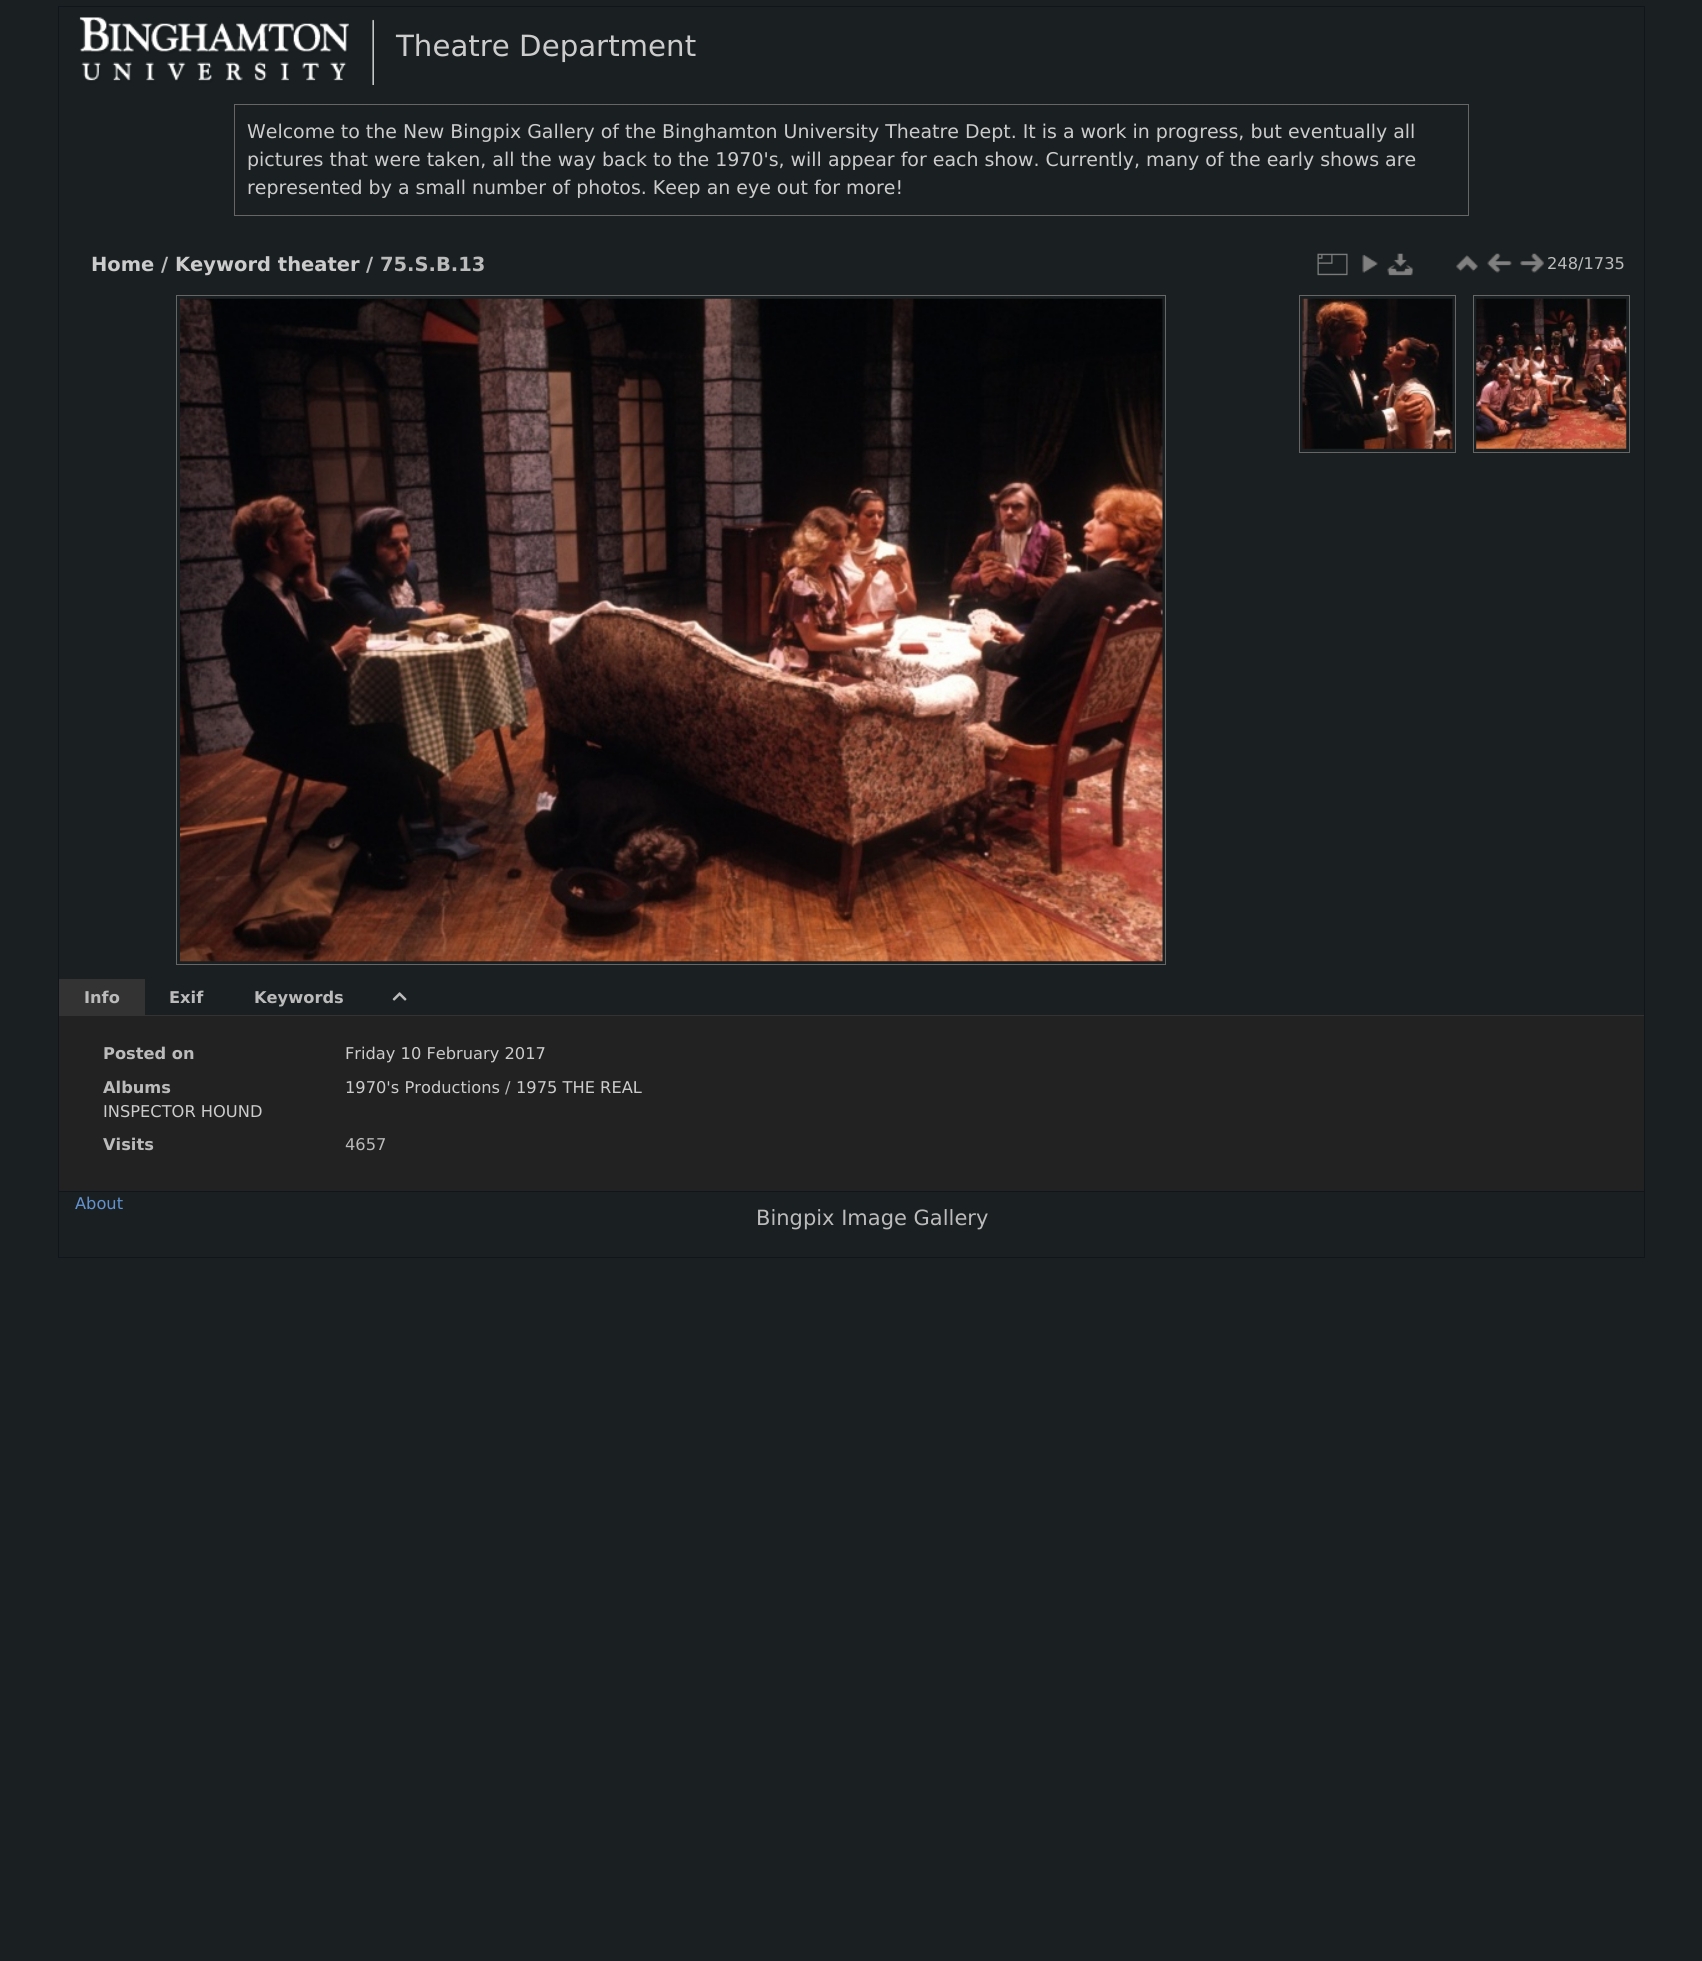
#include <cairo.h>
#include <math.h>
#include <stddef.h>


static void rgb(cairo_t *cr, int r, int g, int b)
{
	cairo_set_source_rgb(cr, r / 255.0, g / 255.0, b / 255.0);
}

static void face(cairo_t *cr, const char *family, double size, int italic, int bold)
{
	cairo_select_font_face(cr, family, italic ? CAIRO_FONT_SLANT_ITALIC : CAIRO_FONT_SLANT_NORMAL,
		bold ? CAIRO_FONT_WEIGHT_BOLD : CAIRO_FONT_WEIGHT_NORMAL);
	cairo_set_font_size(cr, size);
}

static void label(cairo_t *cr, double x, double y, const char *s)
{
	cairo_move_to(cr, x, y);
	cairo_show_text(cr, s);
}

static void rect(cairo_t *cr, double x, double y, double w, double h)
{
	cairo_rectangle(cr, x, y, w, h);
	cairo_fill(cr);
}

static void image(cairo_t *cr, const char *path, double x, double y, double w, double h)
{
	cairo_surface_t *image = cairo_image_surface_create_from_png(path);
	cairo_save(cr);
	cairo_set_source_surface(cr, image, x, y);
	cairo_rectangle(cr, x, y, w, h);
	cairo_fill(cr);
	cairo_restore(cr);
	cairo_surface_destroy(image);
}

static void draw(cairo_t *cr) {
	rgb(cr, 26, 32, 34);
	cairo_paint(cr);
	cairo_rectangle(cr, 58.5, 6.5, 1586, 1251);
	rgb(cr, 16, 21, 28);
	cairo_set_line_width(cr, 1);
	cairo_stroke(cr);
	image(cr, "image0.png", 79, 17, 295, 68);
	face(cr, "DejaVu Sans", 29.25, 0, 0);
	rgb(cr, 204, 204, 204);
	label(cr, 396, 56, "Theatre Department");
	cairo_rectangle(cr, 234.5, 104.5, 1234, 111);
	rgb(cr, 102, 102, 102);
	cairo_stroke(cr);
	face(cr, "DejaVu Sans", 18.95, 0, 0);
	rgb(cr, 204, 204, 204);
	label(cr, 247, 138, "Welcome to the New Bingpix Gallery of the Binghamton University Theatre Dept. It is a work in progress, but eventually all");
	label(cr, 247, 166, "pictures that were taken, all the way back to the 1970's, will appear for each show. Currently, many of the early shows are");
	label(cr, 247, 194, "represented by a small number of photos. Keep an eye out for more!");
	face(cr, "DejaVu Sans", 19.5, 0, 1);
	label(cr, 91, 271, "Home");
	rgb(cr, 187, 187, 187);
	label(cr, 161, 271, "/");
	rgb(cr, 204, 204, 204);
	label(cr, 175, 271, "Keyword theater");
	rgb(cr, 187, 187, 187);
	label(cr, 366, 271, "/ 75.S.B.13");
	image(cr, "image1.png", 1317, 253, 31, 23);
	image(cr, "image2.png", 1362, 254, 16, 19);
	image(cr, "image3.png", 1387, 253, 27, 23);
	image(cr, "image4.png", 1456, 255, 22, 17);
	image(cr, "image5.png", 1487, 253, 25, 20);
	image(cr, "image6.png", 1520, 253, 24, 20);
	face(cr, "DejaVu Sans", 16.25, 0, 0);
	label(cr, 1547, 269, "248/1735");
	cairo_rectangle(cr, 176.5, 295.5, 989, 669);
	rgb(cr, 102, 102, 102);
	cairo_stroke(cr);
	cairo_rectangle(cr, 1299.5, 295.5, 156, 157);
	cairo_stroke(cr);
	image(cr, "image7.png", 1302, 298, 151, 151);
	cairo_rectangle(cr, 1473.5, 295.5, 156, 157);
	cairo_stroke(cr);
	image(cr, "image8.png", 1476, 298, 151, 151);
	image(cr, "image9.png", 180, 298, 983, 664);
	rgb(cr, 51, 51, 51);
	rect(cr, 145, 1015, 1499, 1);
	rect(cr, 59, 979, 86, 37);
	face(cr, "DejaVu Sans", 16.25, 0, 1);
	rgb(cr, 187, 187, 187);
	label(cr, 84, 1003, "Info");
	label(cr, 169, 1003, "Exif");
	label(cr, 254, 1003, "Keywords");
	image(cr, "image10.png", 392, 992, 15, 9);
	rgb(cr, 34, 34, 34);
	rect(cr, 59, 1016, 1585, 175);
	rgb(cr, 187, 187, 187);
	label(cr, 103, 1059, "Posted on");
	face(cr, "DejaVu Sans", 16.25, 0, 0);
	rgb(cr, 204, 204, 204);
	label(cr, 345, 1059, "Friday 10 February 2017");
	face(cr, "DejaVu Sans", 16.25, 0, 1);
	rgb(cr, 187, 187, 187);
	label(cr, 103, 1093, "Albums");
	face(cr, "DejaVu Sans", 16.25, 0, 0);
	rgb(cr, 204, 204, 204);
	label(cr, 345, 1093, "1970's Productions");
	rgb(cr, 187, 187, 187);
	label(cr, 505, 1093, "/");
	rgb(cr, 204, 204, 204);
	label(cr, 516, 1093, "1975 THE REAL");
	label(cr, 103, 1117, "INSPECTOR HOUND");
	face(cr, "DejaVu Sans", 16.25, 0, 1);
	rgb(cr, 187, 187, 187);
	label(cr, 103, 1150, "Visits");
	face(cr, "DejaVu Sans", 16.25, 0, 0);
	label(cr, 345, 1150, "4657");
	rgb(cr, 16, 21, 28);
	rect(cr, 59, 1191, 1585, 1);
	rgb(cr, 99, 146, 207);
	label(cr, 75, 1209, "About");
	face(cr, "DejaVu Sans", 21, 0, 0);
	rgb(cr, 187, 187, 187);
	label(cr, 756, 1225, "Bingpix Image Gallery");
}

int main(void) {
	cairo_surface_t *surface = cairo_image_surface_create(CAIRO_FORMAT_RGB24, 1702, 1961);
	cairo_t *cr = cairo_create(surface);
	cairo_font_options_t *options = cairo_font_options_create();
	cairo_font_options_set_hint_metrics(options, CAIRO_HINT_METRICS_OFF);
	cairo_font_options_set_hint_style(options, CAIRO_HINT_STYLE_NONE);
	cairo_set_font_options(cr, options);
	cairo_set_miter_limit(cr, 4);
	draw(cr);
	cairo_surface_write_to_png(surface, "render.png");
	cairo_font_options_destroy(options);
	cairo_destroy(cr);
	cairo_surface_destroy(surface);
	return 0;
}
